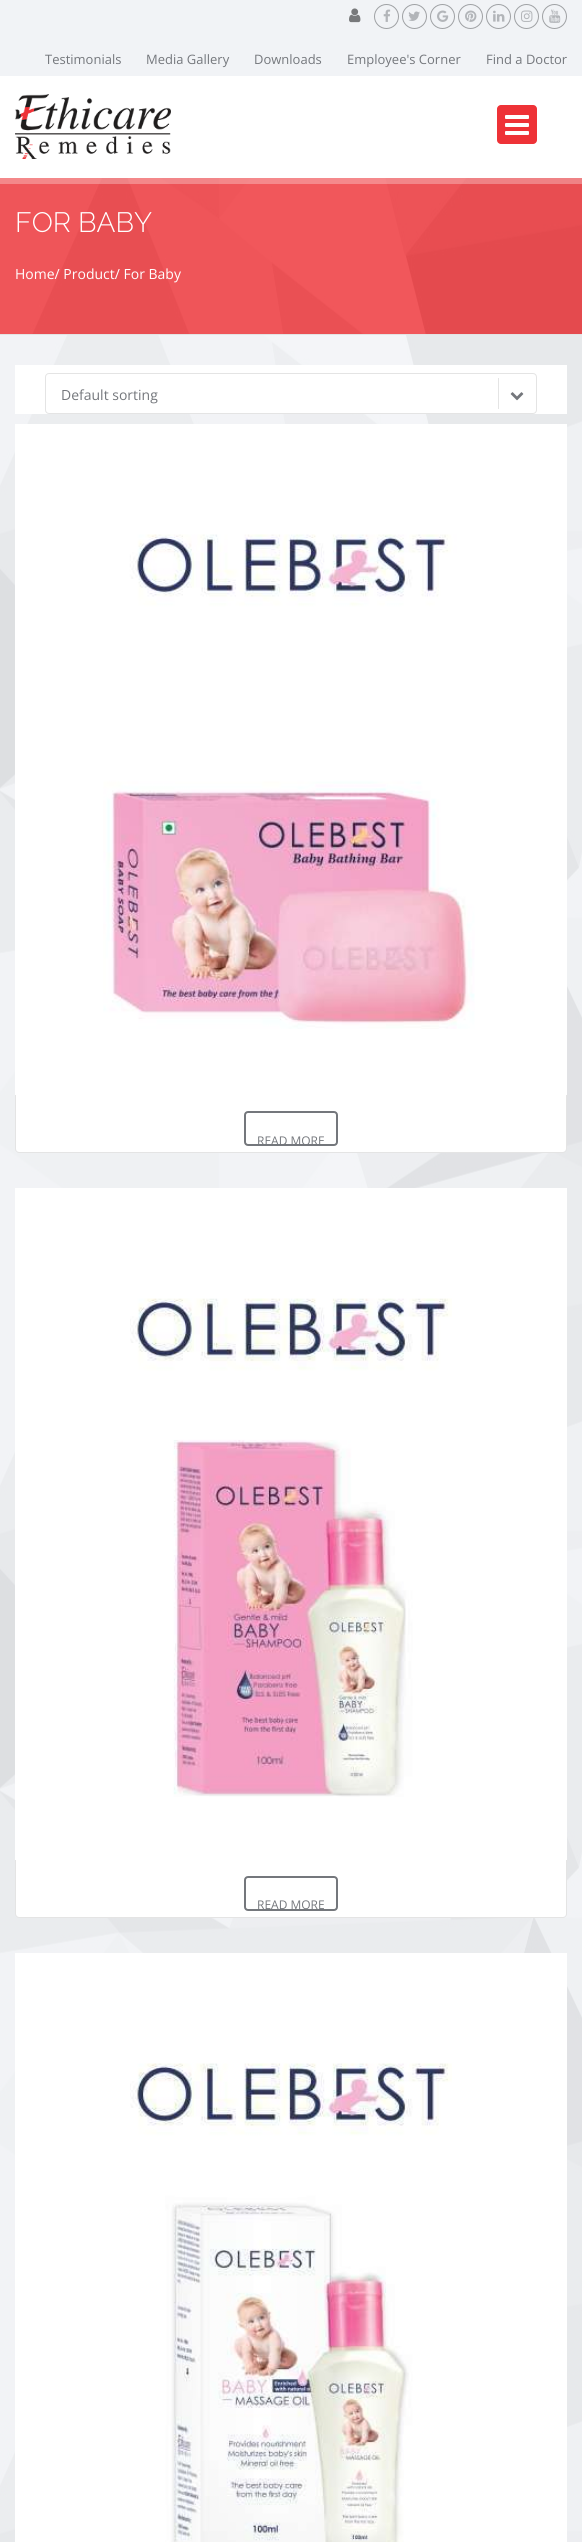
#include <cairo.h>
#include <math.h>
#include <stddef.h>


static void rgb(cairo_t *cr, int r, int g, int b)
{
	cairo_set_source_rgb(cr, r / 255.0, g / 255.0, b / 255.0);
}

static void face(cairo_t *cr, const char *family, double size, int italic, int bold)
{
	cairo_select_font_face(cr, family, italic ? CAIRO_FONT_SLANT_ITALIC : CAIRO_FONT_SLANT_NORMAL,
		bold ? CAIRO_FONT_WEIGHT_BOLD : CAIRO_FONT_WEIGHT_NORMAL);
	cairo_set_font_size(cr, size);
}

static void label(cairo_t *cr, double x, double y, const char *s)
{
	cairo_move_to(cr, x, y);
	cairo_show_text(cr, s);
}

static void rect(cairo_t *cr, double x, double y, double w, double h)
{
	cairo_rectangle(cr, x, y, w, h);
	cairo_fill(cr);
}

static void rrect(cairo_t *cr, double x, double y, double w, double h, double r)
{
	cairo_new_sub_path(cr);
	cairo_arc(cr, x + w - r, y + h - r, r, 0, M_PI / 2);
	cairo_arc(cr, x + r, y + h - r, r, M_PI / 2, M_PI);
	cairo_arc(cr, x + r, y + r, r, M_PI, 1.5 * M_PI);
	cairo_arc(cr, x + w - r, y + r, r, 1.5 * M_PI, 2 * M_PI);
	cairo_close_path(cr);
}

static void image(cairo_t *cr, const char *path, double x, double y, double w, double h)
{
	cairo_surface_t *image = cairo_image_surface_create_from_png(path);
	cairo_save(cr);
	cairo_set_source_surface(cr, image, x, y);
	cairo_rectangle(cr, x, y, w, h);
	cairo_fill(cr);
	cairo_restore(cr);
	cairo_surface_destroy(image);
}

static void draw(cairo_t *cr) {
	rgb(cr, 255, 255, 255);
	cairo_paint(cr);
	rgb(cr, 241, 243, 246);
	rect(cr, 0, 0, 582, 76);
	image(cr, "image0.png", 349, 8, 12, 15);
	cairo_arc(cr, 386.5, 16.5, 12, 0, 2 * M_PI);
	rgb(cr, 159, 161, 164);
	cairo_set_line_width(cr, 1);
	cairo_stroke(cr);
	image(cr, "image1.png", 383, 9, 8, 13);
	cairo_arc(cr, 414.5, 16.5, 12, 0, 2 * M_PI);
	cairo_stroke(cr);
	image(cr, "image2.png", 408, 11, 12, 10);
	cairo_arc(cr, 442.5, 16.5, 12, 0, 2 * M_PI);
	cairo_stroke(cr);
	image(cr, "image3.png", 437, 10, 12, 12);
	cairo_arc(cr, 470.5, 16.5, 12, 0, 2 * M_PI);
	cairo_stroke(cr);
	image(cr, "image4.png", 465, 10, 12, 12);
	cairo_arc(cr, 498.5, 16.5, 12, 0, 2 * M_PI);
	cairo_stroke(cr);
	image(cr, "image5.png", 493, 10, 12, 12);
	cairo_arc(cr, 526.5, 16.5, 12, 0, 2 * M_PI);
	cairo_stroke(cr);
	image(cr, "image6.png", 521, 10, 12, 12);
	cairo_arc(cr, 554.5, 16.5, 12, 0, 2 * M_PI);
	cairo_stroke(cr);
	image(cr, "image7.png", 549, 9, 12, 14);
	face(cr, "Open Sans", 13, 0, 0);
	rgb(cr, 116, 119, 124);
	label(cr, 45, 64, "Testimonials");
	label(cr, 146, 64, "Media Gallery");
	label(cr, 254, 64, "Downloads");
	label(cr, 347, 64, "Employee's Corner");
	label(cr, 486, 64, "Find a Doctor");
	image(cr, "image8.png", 15, 94, 156, 65);
	rgb(cr, 238, 50, 55);
	rrect(cr, 497, 105, 40, 39, 4);
	cairo_fill(cr);
	image(cr, "image9.png", 505, 115, 24, 20);
	image(cr, "image10.png", 0, 178, 582, 156);
	cairo_set_source_rgba(cr, 1, 1, 1, 0.3);
	rect(cr, 0, 178, 582, 6);
	face(cr, "Raleway Thin", 28, 0, 0);
	rgb(cr, 255, 255, 255);
	label(cr, 15, 232, "FOR BABY");
	face(cr, "Open Sans", 14, 0, 0);
	label(cr, 15, 279, "Home/ Product/ For Baby");
	image(cr, "image11.png", 0, 335, 582, 2207);
	rgb(cr, 227, 227, 227);
	rect(cr, 0, 334, 582, 1);
	rgb(cr, 255, 255, 255);
	rect(cr, 15, 365, 552, 49);
	rrect(cr, 45.5, 373.5, 491, 40, 3.5);
	rgb(cr, 228, 228, 228);
	cairo_stroke(cr);
	rgb(cr, 116, 119, 124);
	label(cr, 61, 400, "Default sorting");
	rgb(cr, 228, 228, 228);
	rect(cr, 498, 378, 1, 31);
	image(cr, "image12.png", 510, 392, 14, 9);
	rgb(cr, 255, 255, 255);
	rect(cr, 15, 424, 552, 671);
	image(cr, "image13.png", 103, 534, 372, 495);
	cairo_new_path(cr);
	cairo_move_to(cr, 16, 1095);
	cairo_line_to(cr, 566, 1095);
	cairo_line_to(cr, 566, 1149);
	cairo_curve_to(cr, 566, 1150.5, 564.5, 1152, 563, 1152);
	cairo_line_to(cr, 19, 1152);
	cairo_curve_to(cr, 17.5, 1152, 16, 1150.5, 16, 1149);
	cairo_close_path(cr);
	cairo_fill(cr);
	rgb(cr, 228, 228, 228);
	cairo_set_fill_rule(cr, CAIRO_FILL_RULE_EVEN_ODD);
	cairo_new_path(cr);
	cairo_move_to(cr, 15, 1095);
	cairo_line_to(cr, 567, 1095);
	cairo_line_to(cr, 567, 1149);
	cairo_curve_to(cr, 567, 1151, 565, 1153, 563, 1153);
	cairo_line_to(cr, 19, 1153);
	cairo_curve_to(cr, 17, 1153, 15, 1151, 15, 1149);
	cairo_close_path(cr);
	cairo_move_to(cr, 16, 1095);
	cairo_line_to(cr, 566, 1095);
	cairo_line_to(cr, 566, 1149);
	cairo_curve_to(cr, 566, 1151, 565, 1152, 563, 1152);
	cairo_line_to(cr, 19, 1152);
	cairo_curve_to(cr, 17, 1152, 16, 1151, 16, 1149);
	cairo_close_path(cr);
	cairo_fill(cr);
	rrect(cr, 245, 1112, 92, 33, 3);
	rgb(cr, 116, 119, 124);
	cairo_set_line_width(cr, 2);
	cairo_stroke(cr);
	face(cr, "Open Sans", 12, 0, 0);
	label(cr, 257, 1145, "READ MORE");
	rgb(cr, 255, 255, 255);
	rect(cr, 15, 1188, 552, 672);
	image(cr, "image14.png", 130, 1298, 322, 499);
	cairo_new_path(cr);
	cairo_move_to(cr, 16, 1860);
	cairo_line_to(cr, 566, 1860);
	cairo_line_to(cr, 566, 1914);
	cairo_curve_to(cr, 566, 1915.5, 564.5, 1917, 563, 1917);
	cairo_line_to(cr, 19, 1917);
	cairo_curve_to(cr, 17.5, 1917, 16, 1915.5, 16, 1914);
	cairo_close_path(cr);
	cairo_fill(cr);
	rgb(cr, 228, 228, 228);
	cairo_new_path(cr);
	cairo_move_to(cr, 15, 1860);
	cairo_line_to(cr, 567, 1860);
	cairo_line_to(cr, 567, 1914);
	cairo_curve_to(cr, 567, 1916, 565, 1918, 563, 1918);
	cairo_line_to(cr, 19, 1918);
	cairo_curve_to(cr, 17, 1918, 15, 1916, 15, 1914);
	cairo_close_path(cr);
	cairo_move_to(cr, 16, 1860);
	cairo_line_to(cr, 566, 1860);
	cairo_line_to(cr, 566, 1914);
	cairo_curve_to(cr, 566, 1916, 565, 1917, 563, 1917);
	cairo_line_to(cr, 19, 1917);
	cairo_curve_to(cr, 17, 1917, 16, 1916, 16, 1914);
	cairo_close_path(cr);
	cairo_fill(cr);
	rrect(cr, 245, 1877, 92, 33, 3);
	rgb(cr, 116, 119, 124);
	cairo_stroke(cr);
	label(cr, 257, 1909, "READ MORE");
	rgb(cr, 255, 255, 255);
	rect(cr, 15, 1953, 552, 589);
	image(cr, "image15.png", 130, 2063, 322, 479);
}

int main(void) {
	cairo_surface_t *surface = cairo_image_surface_create(CAIRO_FORMAT_RGB24, 582, 2542);
	cairo_t *cr = cairo_create(surface);
	cairo_font_options_t *options = cairo_font_options_create();
	cairo_font_options_set_hint_metrics(options, CAIRO_HINT_METRICS_OFF);
	cairo_font_options_set_hint_style(options, CAIRO_HINT_STYLE_NONE);
	cairo_set_font_options(cr, options);
	cairo_set_miter_limit(cr, 4);
	draw(cr);
	cairo_surface_write_to_png(surface, "render.png");
	cairo_font_options_destroy(options);
	cairo_destroy(cr);
	cairo_surface_destroy(surface);
	return 0;
}
